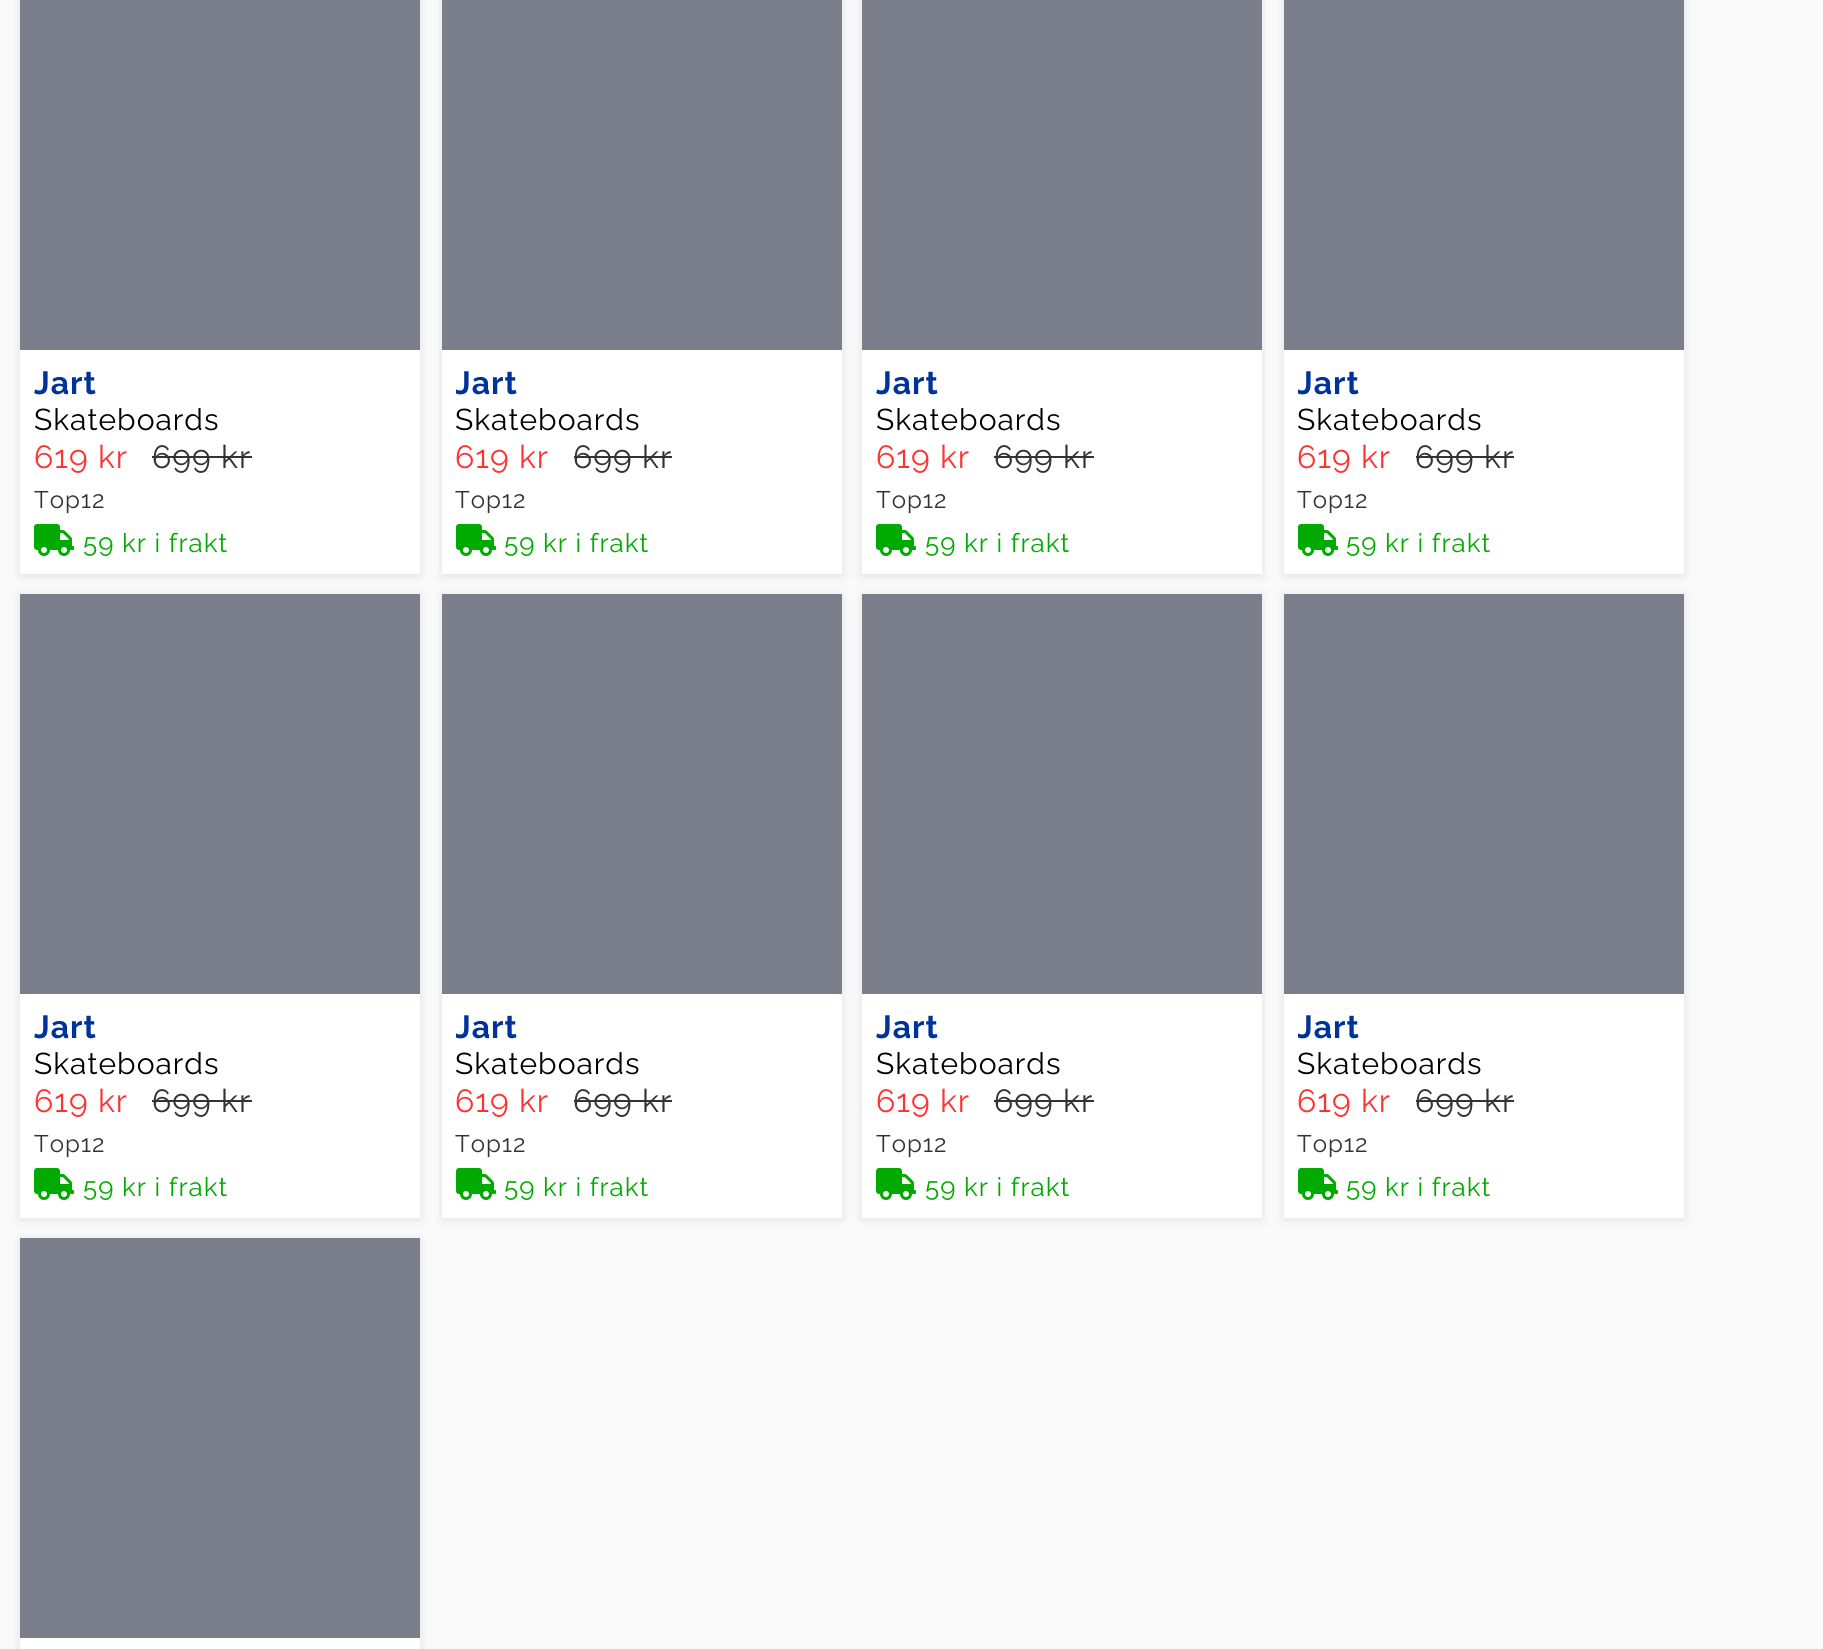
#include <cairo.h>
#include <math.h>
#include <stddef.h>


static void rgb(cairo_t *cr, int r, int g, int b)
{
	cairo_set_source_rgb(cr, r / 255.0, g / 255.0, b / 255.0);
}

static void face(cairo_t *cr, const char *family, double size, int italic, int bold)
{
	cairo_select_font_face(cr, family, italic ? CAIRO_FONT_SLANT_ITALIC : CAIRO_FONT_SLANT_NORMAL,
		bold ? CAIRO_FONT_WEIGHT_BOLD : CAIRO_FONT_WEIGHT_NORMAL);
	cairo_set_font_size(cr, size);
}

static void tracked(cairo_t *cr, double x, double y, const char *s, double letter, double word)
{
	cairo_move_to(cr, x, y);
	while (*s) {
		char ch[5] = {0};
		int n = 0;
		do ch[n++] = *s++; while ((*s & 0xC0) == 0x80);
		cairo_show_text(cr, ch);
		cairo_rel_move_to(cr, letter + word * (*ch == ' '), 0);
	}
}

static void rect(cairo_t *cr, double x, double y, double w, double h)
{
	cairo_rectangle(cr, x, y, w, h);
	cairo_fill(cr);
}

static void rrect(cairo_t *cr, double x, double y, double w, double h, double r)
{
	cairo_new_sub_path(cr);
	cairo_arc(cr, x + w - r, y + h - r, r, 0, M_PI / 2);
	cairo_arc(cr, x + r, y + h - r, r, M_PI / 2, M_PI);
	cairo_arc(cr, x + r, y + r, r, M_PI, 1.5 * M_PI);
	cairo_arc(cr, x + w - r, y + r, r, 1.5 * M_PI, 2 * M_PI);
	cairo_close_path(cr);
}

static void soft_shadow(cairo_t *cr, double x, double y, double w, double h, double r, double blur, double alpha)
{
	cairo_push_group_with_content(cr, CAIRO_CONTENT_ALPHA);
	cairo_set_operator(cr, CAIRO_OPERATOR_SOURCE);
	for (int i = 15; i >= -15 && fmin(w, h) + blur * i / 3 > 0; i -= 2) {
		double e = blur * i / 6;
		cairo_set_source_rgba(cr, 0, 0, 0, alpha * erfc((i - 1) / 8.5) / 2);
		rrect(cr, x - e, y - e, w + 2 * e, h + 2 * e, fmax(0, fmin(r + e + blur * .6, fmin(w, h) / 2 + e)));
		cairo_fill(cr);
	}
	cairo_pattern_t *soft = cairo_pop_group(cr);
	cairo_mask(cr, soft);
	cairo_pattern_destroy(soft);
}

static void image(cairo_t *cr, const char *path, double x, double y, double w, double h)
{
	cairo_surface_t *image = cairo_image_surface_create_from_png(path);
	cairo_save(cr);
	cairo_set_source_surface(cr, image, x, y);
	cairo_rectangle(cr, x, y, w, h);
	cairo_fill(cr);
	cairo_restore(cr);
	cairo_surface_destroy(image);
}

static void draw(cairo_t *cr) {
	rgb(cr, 250, 250, 250);
	cairo_paint(cr);
	rgb(cr, 0, 0, 0);
	soft_shadow(cr, 20, -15, 400, 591, 0, 5, 0.1);
	rgb(cr, 255, 255, 255);
	rect(cr, 20, 350, 400, 224);
	rgb(cr, 123, 127, 139);
	rect(cr, 20, 0, 400, 350);
	face(cr, "Raleway", 32, 0, 1);
	rgb(cr, 0, 51, 153);
	tracked(cr, 34, 394, "Jart", 1, 0);
	face(cr, "Raleway", 30, 0, 0);
	rgb(cr, 0, 0, 0);
	tracked(cr, 34, 430, "Skateboards", 1, 0);
	face(cr, "Raleway", 32, 0, 0);
	rgb(cr, 255, 50, 50);
	tracked(cr, 34, 468, "619 kr", 1, 0);
	rgb(cr, 51, 51, 51);
	tracked(cr, 152, 468, "699 kr", 1, 0);
	rect(cr, 152, 456, 100, 2);
	face(cr, "Raleway", 24, 0, 0);
	tracked(cr, 34, 508, "Top12", 1, 0);
	image(cr, "image0.png", 34, 524, 40, 32);
	face(cr, "Raleway", 26, 0, 0);
	rgb(cr, 0, 170, 0);
	tracked(cr, 83, 552, "59 kr i frakt", 1, 0);
	rgb(cr, 0, 0, 0);
	soft_shadow(cr, 442, -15, 400, 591, 0, 5, 0.1);
	rgb(cr, 255, 255, 255);
	rect(cr, 442, 350, 400, 224);
	rgb(cr, 123, 127, 139);
	rect(cr, 442, 0, 400, 350);
	cairo_save(cr);
	cairo_rectangle(cr, 456, 364, 386, 38);
	cairo_clip(cr);
	face(cr, "Raleway", 32, 0, 1);
	rgb(cr, 0, 51, 153);
	tracked(cr, 455, 394, "Jart", 1, 0);
	cairo_restore(cr);
	face(cr, "Raleway", 30, 0, 0);
	rgb(cr, 0, 0, 0);
	tracked(cr, 455, 430, "Skateboards", 1, 0);
	face(cr, "Raleway", 32, 0, 0);
	rgb(cr, 255, 50, 50);
	tracked(cr, 455, 468, "619 kr", 1, 0);
	rgb(cr, 51, 51, 51);
	tracked(cr, 573, 468, "699 kr", 1, 0);
	rect(cr, 574, 456, 98, 2);
	face(cr, "Raleway", 24, 0, 0);
	tracked(cr, 455, 508, "Top12", 1, 0);
	image(cr, "image0.png", 456, 524, 40, 32);
	face(cr, "Raleway", 26, 0, 0);
	rgb(cr, 0, 170, 0);
	tracked(cr, 504, 552, "59 kr i frakt", 1, 0);
	rgb(cr, 0, 0, 0);
	soft_shadow(cr, 862, -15, 400, 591, 0, 5, 0.1);
	rgb(cr, 255, 255, 255);
	rect(cr, 862, 350, 400, 224);
	rgb(cr, 123, 127, 139);
	rect(cr, 862, 0, 400, 350);
	face(cr, "Raleway", 32, 0, 1);
	rgb(cr, 0, 51, 153);
	tracked(cr, 876, 394, "Jart", 1, 0);
	face(cr, "Raleway", 30, 0, 0);
	rgb(cr, 0, 0, 0);
	tracked(cr, 876, 430, "Skateboards", 1, 0);
	face(cr, "Raleway", 32, 0, 0);
	rgb(cr, 255, 50, 50);
	tracked(cr, 876, 468, "619 kr", 1, 0);
	rgb(cr, 51, 51, 51);
	tracked(cr, 994, 468, "699 kr", 1, 0);
	rect(cr, 994, 456, 100, 2);
	face(cr, "Raleway", 24, 0, 0);
	tracked(cr, 876, 508, "Top12", 1, 0);
	image(cr, "image0.png", 876, 524, 40, 32);
	face(cr, "Raleway", 26, 0, 0);
	rgb(cr, 0, 170, 0);
	tracked(cr, 925, 552, "59 kr i frakt", 1, 0);
	rgb(cr, 0, 0, 0);
	soft_shadow(cr, 1284, -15, 400, 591, 0, 5, 0.1);
	rgb(cr, 255, 255, 255);
	rect(cr, 1284, 350, 400, 224);
	rgb(cr, 123, 127, 139);
	rect(cr, 1284, 0, 400, 350);
	cairo_save(cr);
	cairo_rectangle(cr, 1298, 364, 386, 38);
	cairo_clip(cr);
	face(cr, "Raleway", 32, 0, 1);
	rgb(cr, 0, 51, 153);
	tracked(cr, 1297, 394, "Jart", 1, 0);
	cairo_restore(cr);
	face(cr, "Raleway", 30, 0, 0);
	rgb(cr, 0, 0, 0);
	tracked(cr, 1297, 430, "Skateboards", 1, 0);
	face(cr, "Raleway", 32, 0, 0);
	rgb(cr, 255, 50, 50);
	tracked(cr, 1297, 468, "619 kr", 1, 0);
	rgb(cr, 51, 51, 51);
	tracked(cr, 1415, 468, "699 kr", 1, 0);
	rect(cr, 1416, 456, 98, 2);
	face(cr, "Raleway", 24, 0, 0);
	tracked(cr, 1297, 508, "Top12", 1, 0);
	image(cr, "image0.png", 1298, 524, 40, 32);
	face(cr, "Raleway", 26, 0, 0);
	rgb(cr, 0, 170, 0);
	tracked(cr, 1346, 552, "59 kr i frakt", 1, 0);
	rgb(cr, 0, 0, 0);
	soft_shadow(cr, 20, 596, 400, 624, 0, 5, 0.1);
	rgb(cr, 255, 255, 255);
	rect(cr, 20, 994, 400, 224);
	rgb(cr, 123, 127, 139);
	rect(cr, 20, 594, 400, 400);
	face(cr, "Raleway", 32, 0, 1);
	rgb(cr, 0, 51, 153);
	tracked(cr, 34, 1038, "Jart", 1, 0);
	face(cr, "Raleway", 30, 0, 0);
	rgb(cr, 0, 0, 0);
	tracked(cr, 34, 1074, "Skateboards", 1, 0);
	face(cr, "Raleway", 32, 0, 0);
	rgb(cr, 255, 50, 50);
	tracked(cr, 34, 1112, "619 kr", 1, 0);
	rgb(cr, 51, 51, 51);
	tracked(cr, 152, 1112, "699 kr", 1, 0);
	rect(cr, 152, 1100, 100, 2);
	face(cr, "Raleway", 24, 0, 0);
	tracked(cr, 34, 1152, "Top12", 1, 0);
	image(cr, "image0.png", 34, 1168, 40, 32);
	face(cr, "Raleway", 26, 0, 0);
	rgb(cr, 0, 170, 0);
	tracked(cr, 83, 1196, "59 kr i frakt", 1, 0);
	rgb(cr, 0, 0, 0);
	soft_shadow(cr, 442, 596, 400, 624, 0, 5, 0.1);
	rgb(cr, 255, 255, 255);
	rect(cr, 442, 994, 400, 224);
	rgb(cr, 123, 127, 139);
	rect(cr, 442, 594, 400, 400);
	cairo_save(cr);
	cairo_rectangle(cr, 456, 1008, 386, 38);
	cairo_clip(cr);
	face(cr, "Raleway", 32, 0, 1);
	rgb(cr, 0, 51, 153);
	tracked(cr, 455, 1038, "Jart", 1, 0);
	cairo_restore(cr);
	face(cr, "Raleway", 30, 0, 0);
	rgb(cr, 0, 0, 0);
	tracked(cr, 455, 1074, "Skateboards", 1, 0);
	face(cr, "Raleway", 32, 0, 0);
	rgb(cr, 255, 50, 50);
	tracked(cr, 455, 1112, "619 kr", 1, 0);
	rgb(cr, 51, 51, 51);
	tracked(cr, 573, 1112, "699 kr", 1, 0);
	rect(cr, 574, 1100, 98, 2);
	face(cr, "Raleway", 24, 0, 0);
	tracked(cr, 455, 1152, "Top12", 1, 0);
	image(cr, "image0.png", 456, 1168, 40, 32);
	face(cr, "Raleway", 26, 0, 0);
	rgb(cr, 0, 170, 0);
	tracked(cr, 504, 1196, "59 kr i frakt", 1, 0);
	rgb(cr, 0, 0, 0);
	soft_shadow(cr, 862, 596, 400, 624, 0, 5, 0.1);
	rgb(cr, 255, 255, 255);
	rect(cr, 862, 994, 400, 224);
	rgb(cr, 123, 127, 139);
	rect(cr, 862, 594, 400, 400);
	face(cr, "Raleway", 32, 0, 1);
	rgb(cr, 0, 51, 153);
	tracked(cr, 876, 1038, "Jart", 1, 0);
	face(cr, "Raleway", 30, 0, 0);
	rgb(cr, 0, 0, 0);
	tracked(cr, 876, 1074, "Skateboards", 1, 0);
	face(cr, "Raleway", 32, 0, 0);
	rgb(cr, 255, 50, 50);
	tracked(cr, 876, 1112, "619 kr", 1, 0);
	rgb(cr, 51, 51, 51);
	tracked(cr, 994, 1112, "699 kr", 1, 0);
	rect(cr, 994, 1100, 100, 2);
	face(cr, "Raleway", 24, 0, 0);
	tracked(cr, 876, 1152, "Top12", 1, 0);
	image(cr, "image0.png", 876, 1168, 40, 32);
	face(cr, "Raleway", 26, 0, 0);
	rgb(cr, 0, 170, 0);
	tracked(cr, 925, 1196, "59 kr i frakt", 1, 0);
	rgb(cr, 0, 0, 0);
	soft_shadow(cr, 1284, 596, 400, 624, 0, 5, 0.1);
	rgb(cr, 255, 255, 255);
	rect(cr, 1284, 994, 400, 224);
	rgb(cr, 123, 127, 139);
	rect(cr, 1284, 594, 400, 400);
	cairo_save(cr);
	cairo_rectangle(cr, 1298, 1008, 386, 38);
	cairo_clip(cr);
	face(cr, "Raleway", 32, 0, 1);
	rgb(cr, 0, 51, 153);
	tracked(cr, 1297, 1038, "Jart", 1, 0);
	cairo_restore(cr);
	face(cr, "Raleway", 30, 0, 0);
	rgb(cr, 0, 0, 0);
	tracked(cr, 1297, 1074, "Skateboards", 1, 0);
	face(cr, "Raleway", 32, 0, 0);
	rgb(cr, 255, 50, 50);
	tracked(cr, 1297, 1112, "619 kr", 1, 0);
	rgb(cr, 51, 51, 51);
	tracked(cr, 1415, 1112, "699 kr", 1, 0);
	rect(cr, 1416, 1100, 98, 2);
	face(cr, "Raleway", 24, 0, 0);
	tracked(cr, 1297, 1152, "Top12", 1, 0);
	image(cr, "image0.png", 1298, 1168, 40, 32);
	face(cr, "Raleway", 26, 0, 0);
	rgb(cr, 0, 170, 0);
	tracked(cr, 1346, 1196, "59 kr i frakt", 1, 0);
	rgb(cr, 0, 0, 0);
	soft_shadow(cr, 20, 1240, 400, 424, 0, 5, 0.1);
	rgb(cr, 255, 255, 255);
	rect(cr, 20, 1638, 400, 11);
	rgb(cr, 123, 127, 139);
	rect(cr, 20, 1238, 400, 400);
}

int main(void) {
	cairo_surface_t *surface = cairo_image_surface_create(CAIRO_FORMAT_RGB24, 1823, 1649);
	cairo_t *cr = cairo_create(surface);
	cairo_font_options_t *options = cairo_font_options_create();
	cairo_font_options_set_hint_metrics(options, CAIRO_HINT_METRICS_OFF);
	cairo_font_options_set_hint_style(options, CAIRO_HINT_STYLE_NONE);
	cairo_set_font_options(cr, options);
	cairo_set_miter_limit(cr, 4);
	draw(cr);
	cairo_surface_write_to_png(surface, "render.png");
	cairo_font_options_destroy(options);
	cairo_destroy(cr);
	cairo_surface_destroy(surface);
	return 0;
}
